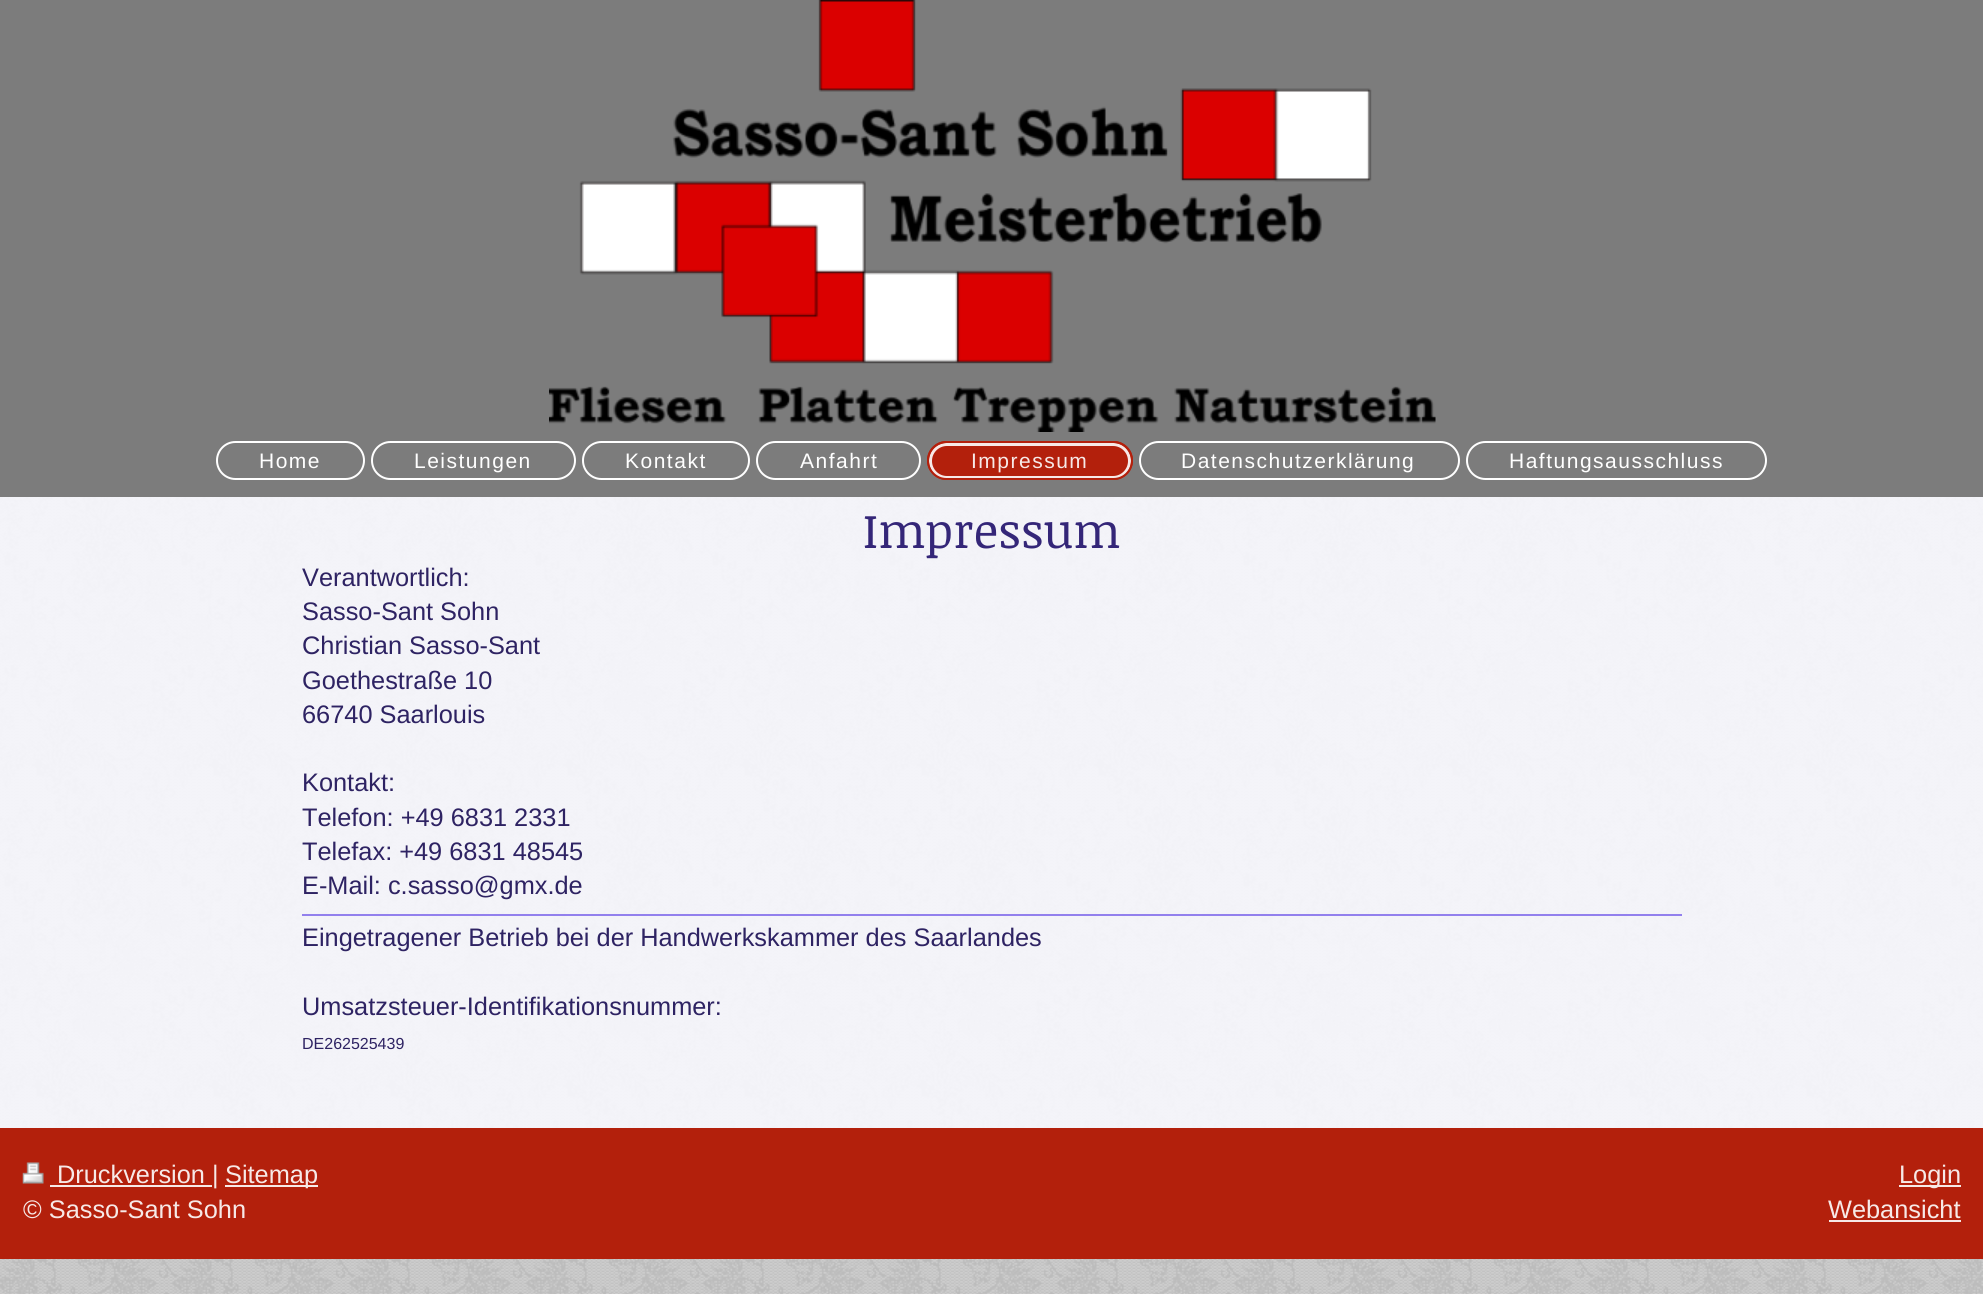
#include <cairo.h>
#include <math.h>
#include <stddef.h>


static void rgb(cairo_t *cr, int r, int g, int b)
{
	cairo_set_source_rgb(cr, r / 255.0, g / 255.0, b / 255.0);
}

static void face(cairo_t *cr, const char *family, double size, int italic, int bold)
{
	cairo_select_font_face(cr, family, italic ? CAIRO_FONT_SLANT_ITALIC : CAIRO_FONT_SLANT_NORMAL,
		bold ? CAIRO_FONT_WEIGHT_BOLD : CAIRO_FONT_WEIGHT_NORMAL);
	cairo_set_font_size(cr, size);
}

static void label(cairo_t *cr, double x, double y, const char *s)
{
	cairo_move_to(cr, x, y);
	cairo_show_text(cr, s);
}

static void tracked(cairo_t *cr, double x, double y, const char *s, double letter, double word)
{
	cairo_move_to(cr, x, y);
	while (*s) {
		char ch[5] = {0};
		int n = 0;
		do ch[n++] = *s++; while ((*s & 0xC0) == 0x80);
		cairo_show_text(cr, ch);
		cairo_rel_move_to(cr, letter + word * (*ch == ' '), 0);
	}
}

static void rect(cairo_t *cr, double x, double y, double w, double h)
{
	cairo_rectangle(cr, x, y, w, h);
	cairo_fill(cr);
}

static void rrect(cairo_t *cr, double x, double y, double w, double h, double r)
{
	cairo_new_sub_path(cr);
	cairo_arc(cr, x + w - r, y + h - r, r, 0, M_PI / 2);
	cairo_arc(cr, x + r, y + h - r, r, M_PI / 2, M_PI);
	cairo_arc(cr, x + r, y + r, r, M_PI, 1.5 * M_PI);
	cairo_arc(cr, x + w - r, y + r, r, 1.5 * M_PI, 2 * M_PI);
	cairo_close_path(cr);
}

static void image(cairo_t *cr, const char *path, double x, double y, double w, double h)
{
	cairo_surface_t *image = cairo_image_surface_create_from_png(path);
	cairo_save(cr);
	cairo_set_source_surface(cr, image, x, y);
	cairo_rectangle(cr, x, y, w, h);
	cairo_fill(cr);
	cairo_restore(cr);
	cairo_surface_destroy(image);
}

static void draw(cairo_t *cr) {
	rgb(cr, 255, 255, 255);
	cairo_paint(cr);
	image(cr, "image0.png", 0, 497, 1983, 797);
	rgb(cr, 124, 124, 124);
	rect(cr, 0, 0, 1983, 497);
	image(cr, "image1.png", 549, 0, 887, 432);
	rrect(cr, 217, 442, 147, 37, 18.5);
	rgb(cr, 255, 255, 255);
	cairo_stroke(cr);
	face(cr, "Liberation Sans", 21, 0, 0);
	tracked(cr, 259, 468, "Home", 1.5, 0);
	rrect(cr, 372, 442, 203, 37, 18.5);
	cairo_stroke(cr);
	tracked(cr, 414, 468, "Leistungen", 1.5, 0);
	rrect(cr, 583, 442, 166, 37, 18.5);
	cairo_stroke(cr);
	tracked(cr, 625, 468, "Kontakt", 1.5, 0);
	rrect(cr, 757, 442, 163, 37, 18.5);
	cairo_stroke(cr);
	tracked(cr, 800, 468, "Anfahrt", 1.5, 0);
	rgb(cr, 179, 32, 12);
	rrect(cr, 927, 441, 206, 39, 19.5);
	cairo_fill(cr);
	rrect(cr, 930.5, 444.5, 199, 33, 16.5);
	rgb(cr, 247, 233, 231);
	cairo_set_line_width(cr, 3);
	cairo_stroke(cr);
	rrect(cr, 928, 442, 204, 37, 18.5);
	rgb(cr, 179, 32, 12);
	cairo_set_line_width(cr, 2);
	cairo_stroke(cr);
	rgb(cr, 247, 233, 231);
	tracked(cr, 971, 468, "Impressum", 1.5, 0);
	rrect(cr, 1140, 442, 319, 37, 18.5);
	rgb(cr, 255, 255, 255);
	cairo_stroke(cr);
	tracked(cr, 1181, 468, "Datenschutzerklärung", 1.5, 0);
	rrect(cr, 1467, 442, 299, 37, 18.5);
	cairo_stroke(cr);
	tracked(cr, 1509, 468, "Haftungsausschluss", 1.5, 0);
	cairo_set_source_rgba(cr, 0.976, 0.973, 0.996, 0.9);
	rect(cr, 0, 497, 1983, 631);
	face(cr, "Noticia Text", 48, 0, 0);
	rgb(cr, 52, 38, 120);
	label(cr, 863, 548, "Impressum");
	face(cr, "Liberation Sans", 25.35, 0, 0);
	rgb(cr, 46, 35, 99);
	label(cr, 302, 586, "Verantwortlich:");
	label(cr, 302, 620, "Sasso-Sant Sohn");
	label(cr, 302, 654, "Christian Sasso-Sant");
	label(cr, 302, 689, "Goethestraße 10");
	label(cr, 302, 723, "66740 Saarlouis");
	label(cr, 302, 791, "Kontakt:");
	label(cr, 302, 826, "Telefon: +49 6831 2331");
	label(cr, 302, 860, "Telefax: +49 6831 48545");
	label(cr, 302, 894, "E-Mail: c.sasso@gmx.de");
	rgb(cr, 146, 128, 237);
	rect(cr, 302, 914, 1380, 2);
	rgb(cr, 46, 35, 99);
	label(cr, 302, 946, "Eingetragener Betrieb bei der Handwerkskammer des Saarlandes");
	label(cr, 302, 1015, "Umsatzsteuer-Identifikationsnummer:");
	face(cr, "Liberation Sans", 16, 0, 0);
	label(cr, 302, 1049, "DE262525439");
	rgb(cr, 179, 32, 12);
	rect(cr, 0, 1128, 1983, 131);
	image(cr, "image2.png", 22, 1162, 22, 22);
	rgb(cr, 247, 233, 231);
	rect(cr, 50, 1185, 162, 2);
	face(cr, "Liberation Sans", 25.35, 0, 0);
	label(cr, 57, 1183, "Druckversion |");
	rect(cr, 225, 1185, 93, 2);
	label(cr, 225, 1183, "Sitemap");
	label(cr, 23, 1218, "© Sasso-Sant Sohn");
	rect(cr, 1899, 1185, 62, 2);
	label(cr, 1899, 1183, "Login");
	label(cr, 1828, 1218, "Webansicht");
	rect(cr, 1829, 1220, 132, 2);
}

int main(void) {
	cairo_surface_t *surface = cairo_image_surface_create(CAIRO_FORMAT_RGB24, 1983, 1294);
	cairo_t *cr = cairo_create(surface);
	cairo_font_options_t *options = cairo_font_options_create();
	cairo_font_options_set_hint_metrics(options, CAIRO_HINT_METRICS_OFF);
	cairo_font_options_set_hint_style(options, CAIRO_HINT_STYLE_NONE);
	cairo_set_font_options(cr, options);
	cairo_set_miter_limit(cr, 4);
	draw(cr);
	cairo_surface_write_to_png(surface, "render.png");
	cairo_font_options_destroy(options);
	cairo_destroy(cr);
	cairo_surface_destroy(surface);
	return 0;
}
